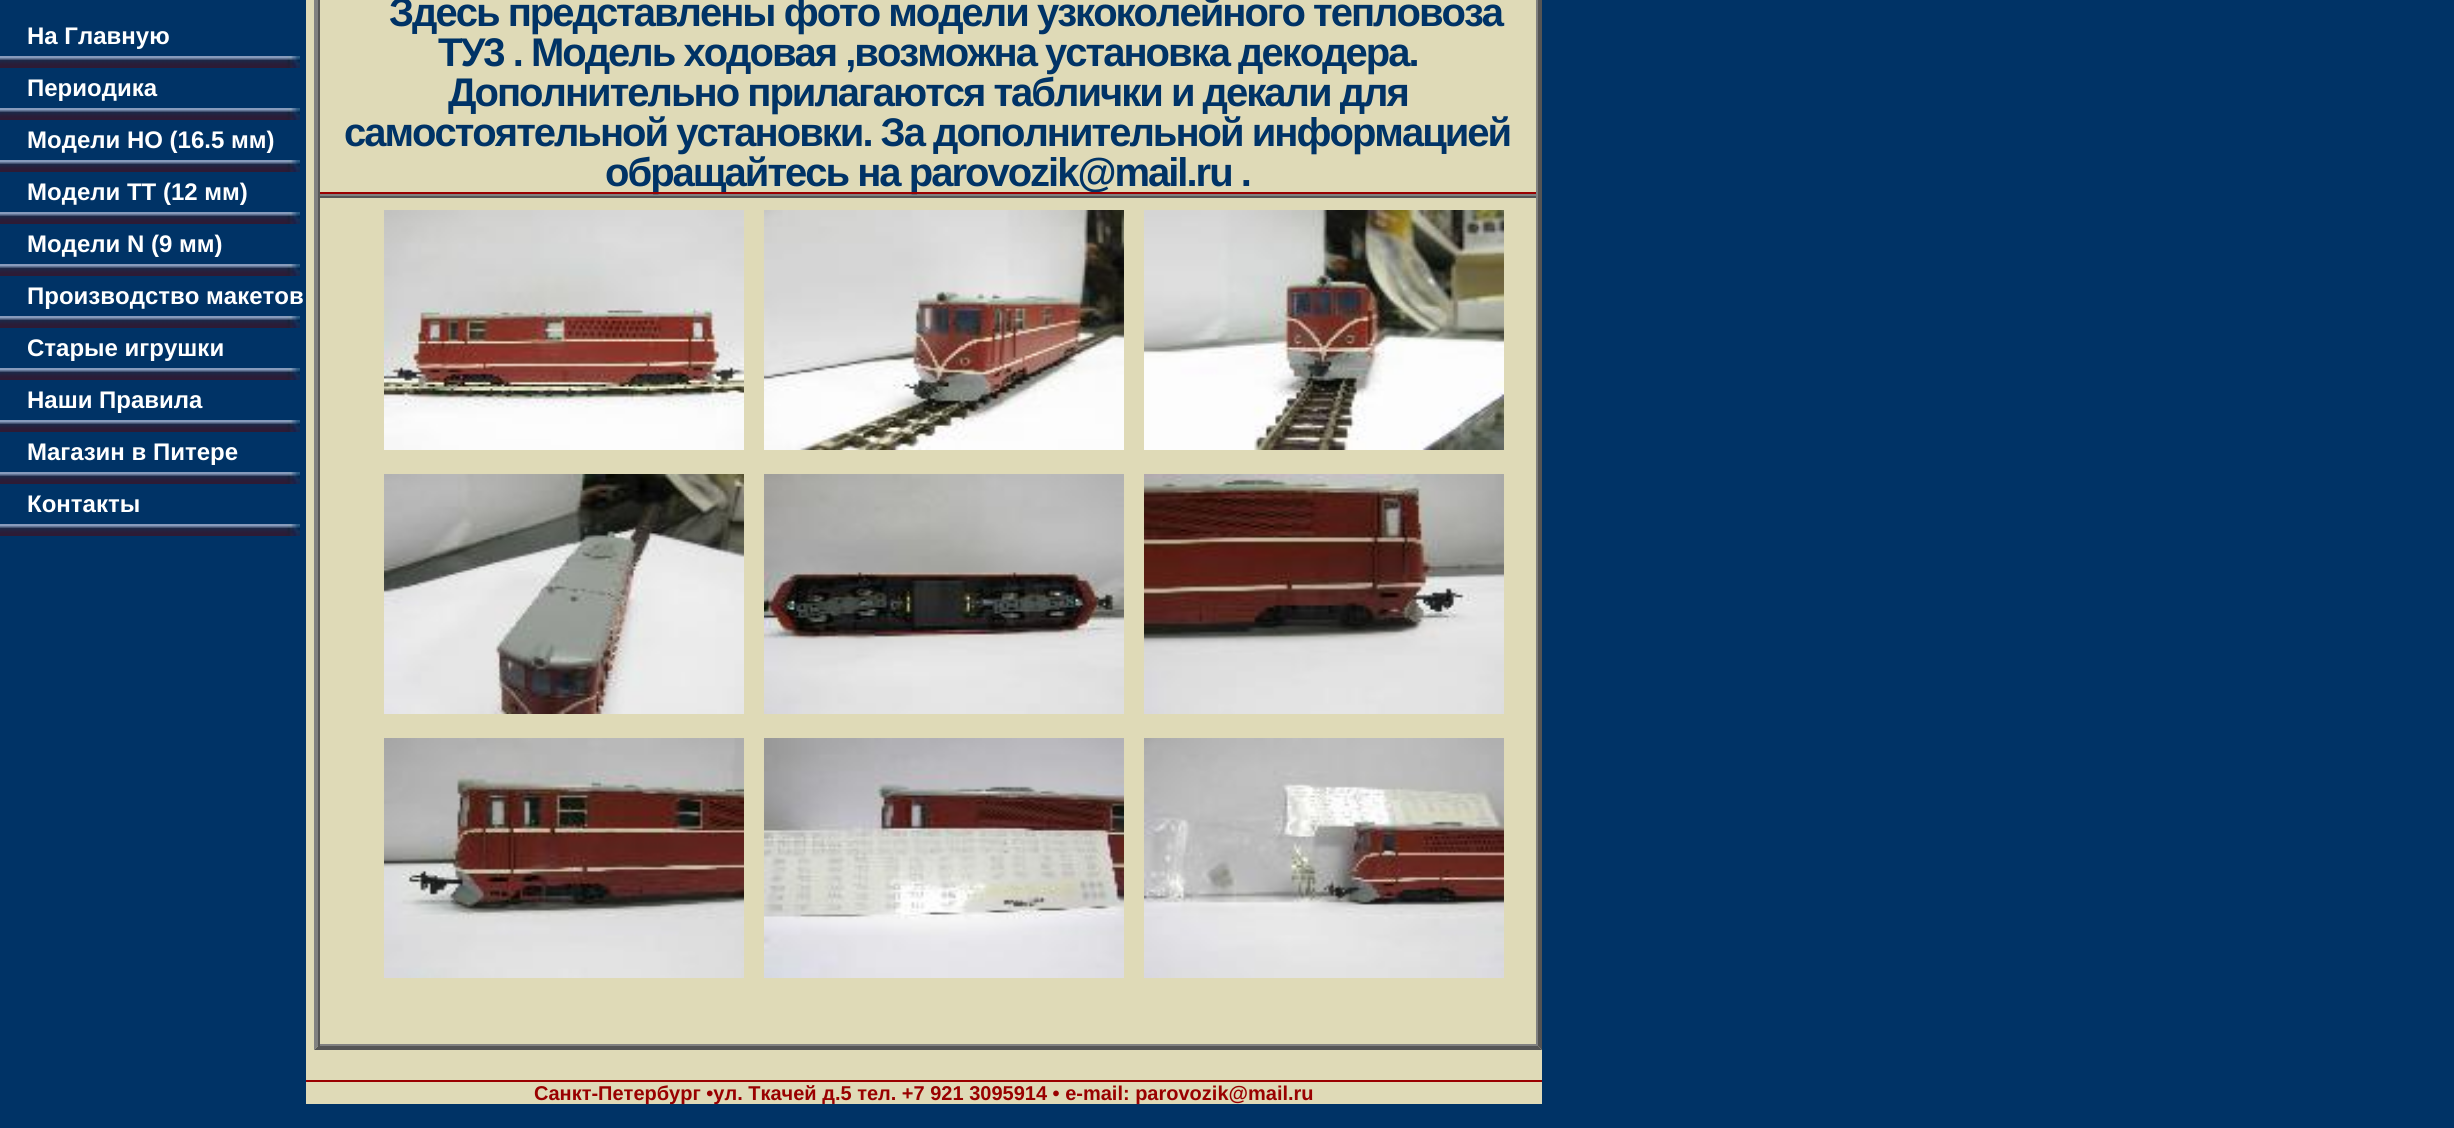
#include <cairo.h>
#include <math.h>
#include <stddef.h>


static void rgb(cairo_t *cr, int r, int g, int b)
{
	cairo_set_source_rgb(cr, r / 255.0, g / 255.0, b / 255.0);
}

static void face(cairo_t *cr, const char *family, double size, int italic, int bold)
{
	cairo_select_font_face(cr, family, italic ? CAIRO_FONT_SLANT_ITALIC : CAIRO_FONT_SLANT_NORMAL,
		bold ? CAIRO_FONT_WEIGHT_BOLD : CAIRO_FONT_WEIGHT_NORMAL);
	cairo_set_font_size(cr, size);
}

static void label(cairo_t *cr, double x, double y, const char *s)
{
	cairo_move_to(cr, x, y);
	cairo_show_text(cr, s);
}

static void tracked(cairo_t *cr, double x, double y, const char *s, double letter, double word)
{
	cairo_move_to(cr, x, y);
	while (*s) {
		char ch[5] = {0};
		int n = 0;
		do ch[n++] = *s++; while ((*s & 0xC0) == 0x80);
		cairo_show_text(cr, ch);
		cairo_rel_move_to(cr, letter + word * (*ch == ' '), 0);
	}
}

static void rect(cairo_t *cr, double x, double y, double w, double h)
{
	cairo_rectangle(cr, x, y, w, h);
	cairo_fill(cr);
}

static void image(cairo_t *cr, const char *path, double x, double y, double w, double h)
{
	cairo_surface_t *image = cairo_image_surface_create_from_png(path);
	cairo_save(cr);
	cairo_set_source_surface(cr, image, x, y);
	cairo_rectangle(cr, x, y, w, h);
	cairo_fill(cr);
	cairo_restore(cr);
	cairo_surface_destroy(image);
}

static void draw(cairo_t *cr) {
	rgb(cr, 0, 51, 102);
	cairo_paint(cr);
	rgb(cr, 223, 218, 183);
	rect(cr, 306, 0, 1236, 1104);
	face(cr, "Liberation Sans", 24, 0, 1);
	rgb(cr, 255, 255, 255);
	label(cr, 27, 44, "На Главную");
	image(cr, "image0.png", 0, 56, 300, 12);
	label(cr, 27, 96, "Периодика");
	image(cr, "image0.png", 0, 108, 300, 12);
	label(cr, 27, 148, "Модели НО (16.5 мм)");
	image(cr, "image0.png", 0, 160, 300, 12);
	label(cr, 27, 200, "Модели TT (12 мм)");
	image(cr, "image0.png", 0, 212, 300, 12);
	label(cr, 27, 252, "Модели N (9 мм)");
	image(cr, "image0.png", 0, 264, 300, 12);
	label(cr, 27, 304, "Производство макетов");
	image(cr, "image0.png", 0, 316, 300, 12);
	label(cr, 27, 356, "Старые игрушки");
	image(cr, "image0.png", 0, 368, 300, 12);
	label(cr, 27, 408, "Наши Правила");
	image(cr, "image0.png", 0, 420, 300, 12);
	label(cr, 27, 460, "Магазин в Питере");
	image(cr, "image0.png", 0, 472, 300, 12);
	label(cr, 27, 512, "Контакты");
	image(cr, "image0.png", 0, 524, 300, 12);
	rgb(cr, 85, 85, 85);
	cairo_new_path(cr);
	cairo_move_to(cr, 1542, -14);
	cairo_line_to(cr, 1542, 1050);
	cairo_line_to(cr, 1538, 1046);
	cairo_line_to(cr, 1538, -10);
	cairo_close_path(cr);
	cairo_fill(cr);
	cairo_new_path(cr);
	cairo_move_to(cr, 1542, 1050);
	cairo_line_to(cr, 314, 1050);
	cairo_line_to(cr, 318, 1046);
	cairo_line_to(cr, 1538, 1046);
	cairo_close_path(cr);
	cairo_fill(cr);
	rgb(cr, 128, 128, 128);
	cairo_new_path(cr);
	cairo_move_to(cr, 314, 1050);
	cairo_line_to(cr, 314, -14);
	cairo_line_to(cr, 318, -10);
	cairo_line_to(cr, 318, 1046);
	cairo_close_path(cr);
	cairo_fill(cr);
	rect(cr, 1536, 0, 2, 196);
	rect(cr, 318, 194, 1220, 2);
	rgb(cr, 85, 85, 85);
	rect(cr, 318, 0, 2, 196);
	face(cr, "Liberation Sans", 40, 0, 1);
	rgb(cr, 0, 51, 102);
	tracked(cr, 389, 26, "Здесь представлены фото модели узкоколейного тепловоза", -2, 0);
	tracked(cr, 438, 66, "ТУ3 . Модель ходовая ,возможна установка декодера.", -2, 0);
	tracked(cr, 448, 106, "Дополнительно прилагаются таблички и декали для", -2, 0);
	tracked(cr, 344, 146, "самостоятельной установки. За дополнительной информацией", -2, 0);
	tracked(cr, 605, 186, "обращайтесь на parovozik@mail.ru .", -2, 0);
	rgb(cr, 154, 0, 0);
	rect(cr, 320, 192, 1216, 2);
	rgb(cr, 85, 85, 85);
	rect(cr, 318, 196, 1220, 2);
	rgb(cr, 128, 128, 128);
	rect(cr, 1536, 196, 2, 850);
	rect(cr, 318, 1044, 1220, 2);
	rgb(cr, 85, 85, 85);
	rect(cr, 318, 196, 2, 850);
	image(cr, "image1.png", 384, 210, 360, 240);
	image(cr, "image2.png", 764, 210, 360, 240);
	image(cr, "image3.png", 1144, 210, 360, 240);
	image(cr, "image4.png", 384, 474, 360, 240);
	image(cr, "image5.png", 764, 474, 360, 240);
	image(cr, "image6.png", 1144, 474, 360, 240);
	image(cr, "image7.png", 384, 738, 360, 240);
	image(cr, "image8.png", 764, 738, 360, 240);
	image(cr, "image9.png", 1144, 738, 360, 240);
	rgb(cr, 154, 0, 0);
	rect(cr, 306, 1080, 1236, 2);
	face(cr, "Liberation Sans", 20, 0, 1);
	rgb(cr, 153, 0, 0);
	label(cr, 534, 1100, "Санкт-Петербург •ул. Ткачей д.5 тел. +7 921 3095914 • e-mail: parovozik@mail.ru");
}

int main(void) {
	cairo_surface_t *surface = cairo_image_surface_create(CAIRO_FORMAT_RGB24, 2454, 1128);
	cairo_t *cr = cairo_create(surface);
	cairo_font_options_t *options = cairo_font_options_create();
	cairo_font_options_set_hint_metrics(options, CAIRO_HINT_METRICS_OFF);
	cairo_font_options_set_hint_style(options, CAIRO_HINT_STYLE_NONE);
	cairo_set_font_options(cr, options);
	cairo_set_miter_limit(cr, 4);
	draw(cr);
	cairo_surface_write_to_png(surface, "render.png");
	cairo_font_options_destroy(options);
	cairo_destroy(cr);
	cairo_surface_destroy(surface);
	return 0;
}
